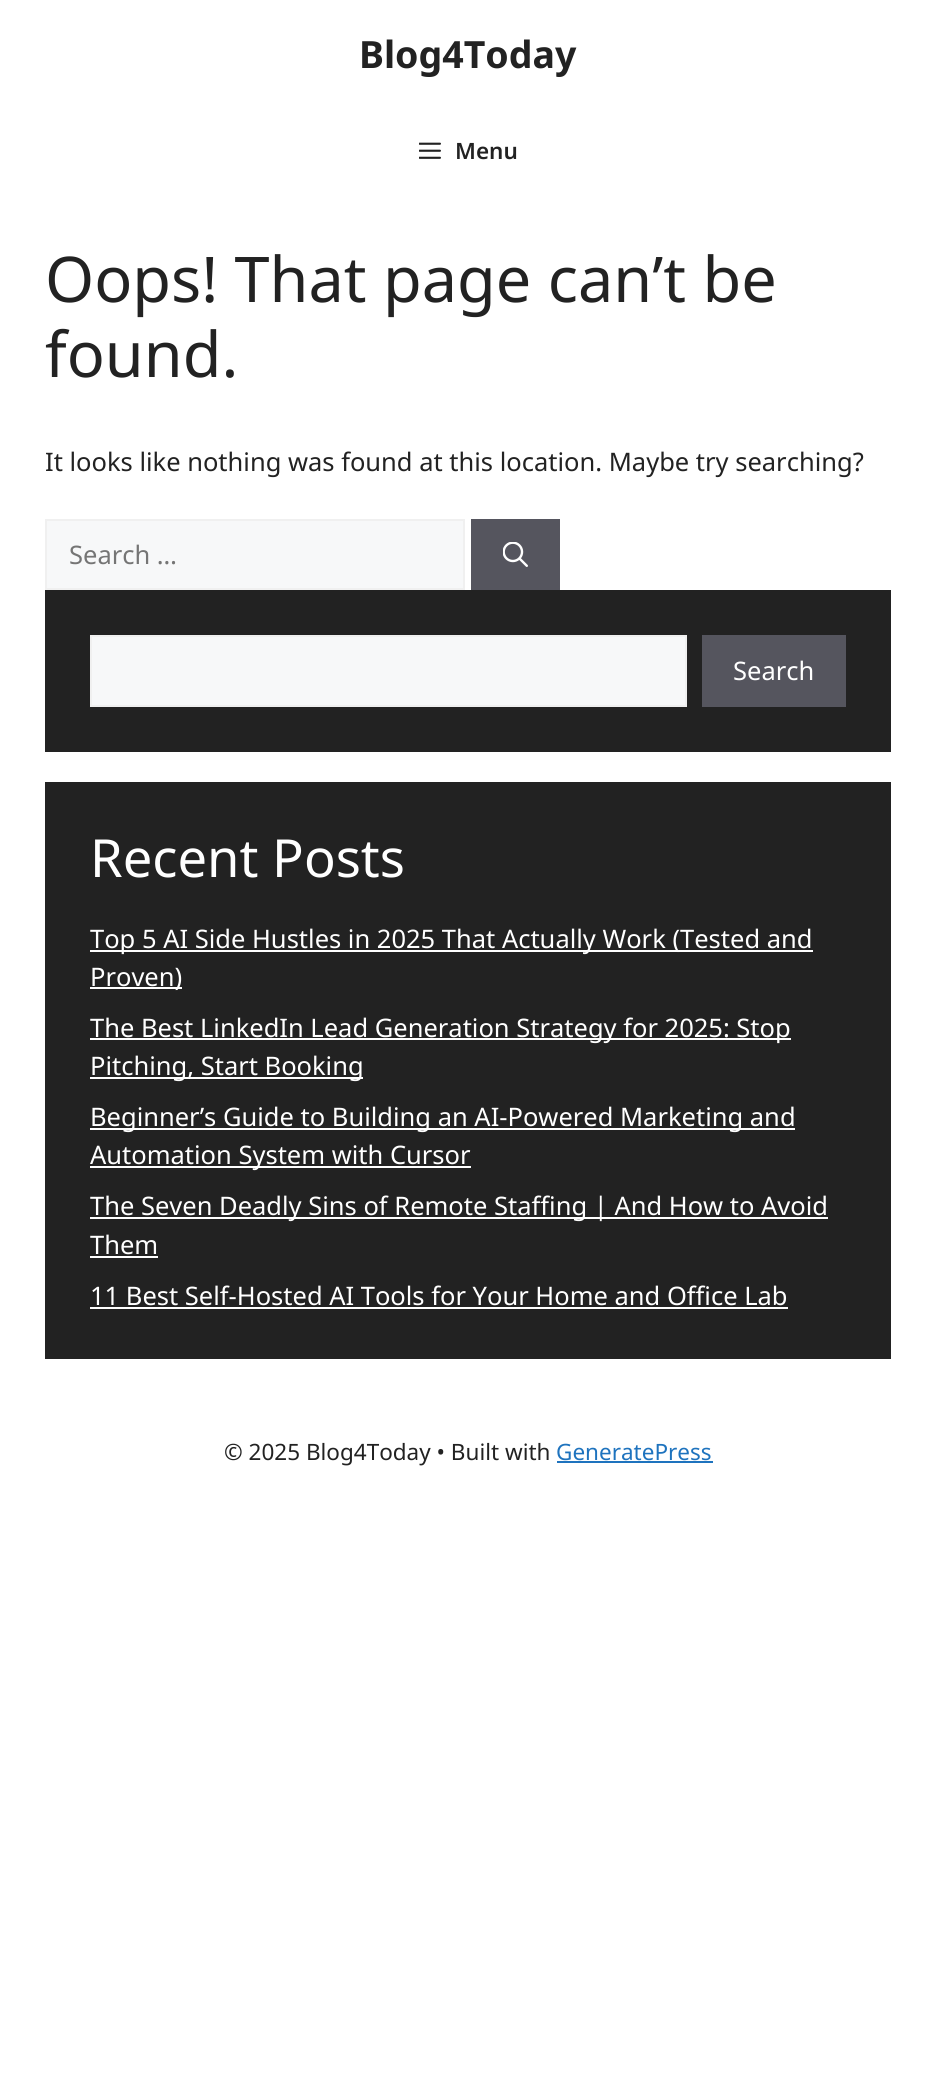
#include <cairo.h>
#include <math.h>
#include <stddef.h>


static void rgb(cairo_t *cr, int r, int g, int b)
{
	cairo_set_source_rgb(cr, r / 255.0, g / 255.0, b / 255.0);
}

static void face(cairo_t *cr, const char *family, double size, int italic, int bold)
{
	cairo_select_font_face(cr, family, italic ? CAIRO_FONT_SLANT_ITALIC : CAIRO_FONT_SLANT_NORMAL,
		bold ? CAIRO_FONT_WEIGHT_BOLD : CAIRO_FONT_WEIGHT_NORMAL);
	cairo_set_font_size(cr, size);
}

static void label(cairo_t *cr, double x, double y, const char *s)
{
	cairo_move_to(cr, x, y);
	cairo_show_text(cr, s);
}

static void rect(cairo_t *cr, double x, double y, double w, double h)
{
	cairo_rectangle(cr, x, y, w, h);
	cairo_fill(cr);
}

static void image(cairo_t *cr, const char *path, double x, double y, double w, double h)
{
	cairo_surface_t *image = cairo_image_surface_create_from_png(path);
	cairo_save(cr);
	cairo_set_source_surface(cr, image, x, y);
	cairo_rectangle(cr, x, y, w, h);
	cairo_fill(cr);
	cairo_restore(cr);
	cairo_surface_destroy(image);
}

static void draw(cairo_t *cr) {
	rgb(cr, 255, 255, 255);
	cairo_paint(cr);
	face(cr, "Noto Sans", 37.5, 0, 1);
	rgb(cr, 34, 34, 34);
	label(cr, 359, 68, "Blog4Today");
	image(cr, "image0.png", 419, 142, 22, 17);
	face(cr, "Noto Sans SemiBold", 22.5, 0, 0);
	label(cr, 455, 159, "Menu");
	face(cr, "Noto Sans", 63, 0, 0);
	label(cr, 45, 302, "Oops! That page can’t be");
	label(cr, 45, 377, "found.");
	face(cr, "Noto Sans", 25.5, 0, 0);
	label(cr, 45, 471, "It looks like nothing was found at this location. Maybe try searching?");
	rgb(cr, 247, 248, 249);
	cairo_rectangle(cr, 46, 520, 418, 69);
	cairo_fill_preserve(cr);
	rgb(cr, 240, 240, 240);
	cairo_stroke(cr);
	rgb(cr, 117, 117, 117);
	label(cr, 69, 564, "Search …");
	rgb(cr, 85, 85, 94);
	rect(cr, 471, 519, 89, 71);
	image(cr, "image1.png", 503, 542, 25, 25);
	rgb(cr, 34, 34, 34);
	rect(cr, 45, 590, 846, 162);
	rgb(cr, 247, 248, 249);
	cairo_rectangle(cr, 91, 636, 595, 70);
	cairo_fill_preserve(cr);
	rgb(cr, 240, 240, 240);
	cairo_stroke(cr);
	rgb(cr, 85, 85, 94);
	rect(cr, 702, 635, 144, 72);
	rgb(cr, 255, 255, 255);
	label(cr, 733, 680, "Search");
	rgb(cr, 34, 34, 34);
	rect(cr, 45, 782, 846, 577);
	face(cr, "Noto Sans", 52.5, 0, 0);
	rgb(cr, 255, 255, 255);
	label(cr, 90, 877, "Recent Posts");
	rect(cr, 90, 950, 723, 2);
	face(cr, "Noto Sans", 25.5, 0, 0);
	label(cr, 90, 948, "Top 5 AI Side Hustles in 2025 That Actually Work (Tested and");
	rect(cr, 90, 987, 92, 2);
	label(cr, 90, 986, "Proven)");
	rect(cr, 90, 1038, 701, 2);
	label(cr, 90, 1037, "The Best LinkedIn Lead Generation Strategy for 2025: Stop");
	rect(cr, 90, 1077, 273, 2);
	label(cr, 90, 1075, "Pitching, Start Booking");
	rect(cr, 90, 1128, 705, 2);
	label(cr, 90, 1126, "Beginner’s Guide to Building an AI-Powered Marketing and");
	rect(cr, 90, 1166, 381, 2);
	label(cr, 90, 1164, "Automation System with Cursor");
	rect(cr, 90, 1217, 738, 2);
	label(cr, 90, 1215, "The Seven Deadly Sins of Remote Staffing | And How to Avoid");
	label(cr, 90, 1254, "Them");
	rect(cr, 90, 1256, 68, 2);
	label(cr, 90, 1305, "11 Best Self-Hosted AI Tools for Your Home and Office Lab");
	rect(cr, 90, 1307, 698, 2);
	face(cr, "Noto Sans", 22.5, 0, 0);
	rgb(cr, 34, 34, 34);
	label(cr, 224, 1460, "© 2025 Blog4Today • Built with");
	rgb(cr, 30, 115, 190);
	label(cr, 556, 1460, "GeneratePress");
	rect(cr, 557, 1461, 156, 2);
}

int main(void) {
	cairo_surface_t *surface = cairo_image_surface_create(CAIRO_FORMAT_RGB24, 936, 2085);
	cairo_t *cr = cairo_create(surface);
	cairo_font_options_t *options = cairo_font_options_create();
	cairo_font_options_set_hint_metrics(options, CAIRO_HINT_METRICS_OFF);
	cairo_font_options_set_hint_style(options, CAIRO_HINT_STYLE_NONE);
	cairo_set_font_options(cr, options);
	cairo_set_miter_limit(cr, 4);
	draw(cr);
	cairo_surface_write_to_png(surface, "render.png");
	cairo_font_options_destroy(options);
	cairo_destroy(cr);
	cairo_surface_destroy(surface);
	return 0;
}
